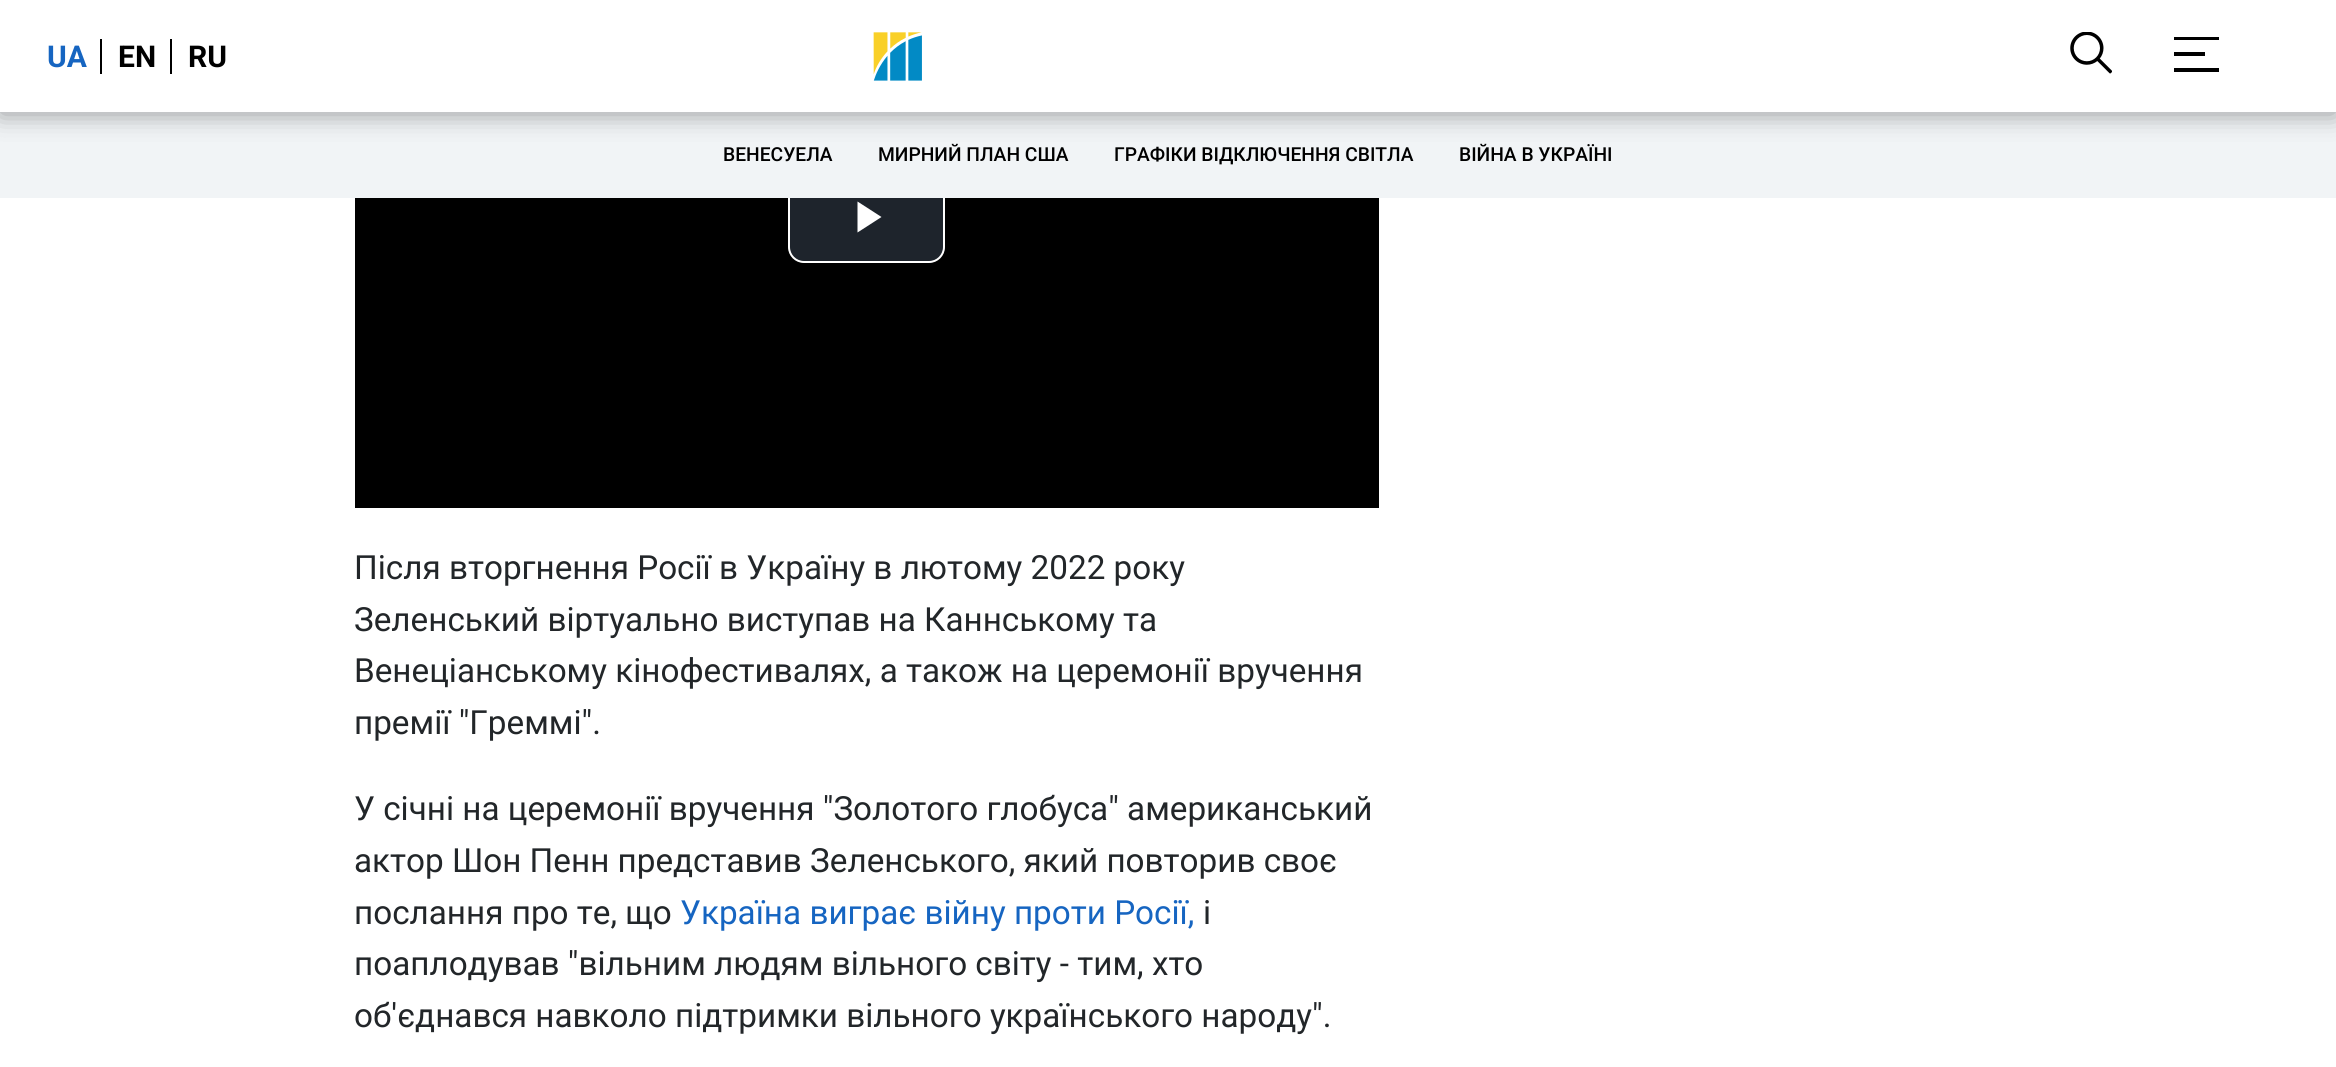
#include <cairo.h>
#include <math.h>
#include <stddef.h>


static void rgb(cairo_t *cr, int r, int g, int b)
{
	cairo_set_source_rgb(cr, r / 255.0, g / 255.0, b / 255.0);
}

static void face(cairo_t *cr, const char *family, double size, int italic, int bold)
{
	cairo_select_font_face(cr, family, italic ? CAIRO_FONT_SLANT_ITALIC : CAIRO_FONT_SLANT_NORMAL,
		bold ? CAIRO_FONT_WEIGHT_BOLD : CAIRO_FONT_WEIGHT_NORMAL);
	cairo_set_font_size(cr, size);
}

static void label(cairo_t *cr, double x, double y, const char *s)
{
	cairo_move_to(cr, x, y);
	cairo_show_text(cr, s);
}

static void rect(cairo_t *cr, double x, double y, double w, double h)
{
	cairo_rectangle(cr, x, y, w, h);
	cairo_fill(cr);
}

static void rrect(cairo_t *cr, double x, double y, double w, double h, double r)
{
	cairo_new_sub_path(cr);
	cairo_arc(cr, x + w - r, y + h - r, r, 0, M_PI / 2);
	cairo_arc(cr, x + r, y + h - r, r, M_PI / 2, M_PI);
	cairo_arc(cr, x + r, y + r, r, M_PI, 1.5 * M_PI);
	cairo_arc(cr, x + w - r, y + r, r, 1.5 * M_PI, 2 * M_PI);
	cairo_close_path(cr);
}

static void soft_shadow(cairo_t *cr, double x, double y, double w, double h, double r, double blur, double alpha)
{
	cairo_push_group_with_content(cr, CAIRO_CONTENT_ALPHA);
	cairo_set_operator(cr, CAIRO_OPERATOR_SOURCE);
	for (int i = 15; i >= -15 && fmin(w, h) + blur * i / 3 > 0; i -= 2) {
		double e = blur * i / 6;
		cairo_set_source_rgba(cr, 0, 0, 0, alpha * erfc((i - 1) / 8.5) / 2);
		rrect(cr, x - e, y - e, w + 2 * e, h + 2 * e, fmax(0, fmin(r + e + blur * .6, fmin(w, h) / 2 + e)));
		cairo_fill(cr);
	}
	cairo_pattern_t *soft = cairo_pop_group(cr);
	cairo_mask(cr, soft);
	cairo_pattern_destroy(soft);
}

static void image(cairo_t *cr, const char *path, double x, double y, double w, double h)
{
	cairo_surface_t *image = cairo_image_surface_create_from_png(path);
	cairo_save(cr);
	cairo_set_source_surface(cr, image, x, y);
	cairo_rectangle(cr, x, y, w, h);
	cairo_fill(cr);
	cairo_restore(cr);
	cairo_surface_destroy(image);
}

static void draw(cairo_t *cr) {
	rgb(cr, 255, 255, 255);
	cairo_paint(cr);
	rgb(cr, 0, 0, 0);
	rect(cr, 355, 198, 1024, 310);
	rgb(cr, 30, 36, 44);
	rrect(cr, 789, 178, 155, 84, 15);
	cairo_fill_preserve(cr);
	rgb(cr, 255, 255, 255);
	cairo_stroke(cr);
	rgb(cr, 241, 244, 246);
	rect(cr, 0, 112, 2336, 86);
	rgb(cr, 0, 0, 0);
	soft_shadow(cr, 0, 2, 2336, 112, 0, 13, 0.38);
	rgb(cr, 255, 255, 255);
	rect(cr, 0, 0, 2336, 112);
	face(cr, "Roboto", 30, 0, 1);
	rgb(cr, 22, 101, 193);
	label(cr, 47, 67, "UA");
	rgb(cr, 0, 0, 0);
	rect(cr, 100, 39, 2, 35);
	label(cr, 118, 67, "EN");
	rect(cr, 170, 39, 2, 35);
	label(cr, 188, 67, "RU");
	image(cr, "image0.png", 873, 32, 49, 49);
	image(cr, "image1.png", 2070, 32, 42, 42);
	rect(cr, 2174, 37, 45, 3);
	rect(cr, 2174, 52, 31, 4);
	rect(cr, 2174, 68, 45, 4);
	face(cr, "Roboto Medium", 19.25, 0, 0);
	label(cr, 723, 161, "ВЕНЕСУЕЛА");
	label(cr, 878, 161, "МИРНИЙ ПЛАН США");
	label(cr, 1114, 161, "ГРАФІКИ ВІДКЛЮЧЕННЯ СВІТЛА");
	label(cr, 1459, 161, "ВІЙНА В УКРАЇНІ");
	rgb(cr, 255, 255, 255);
	cairo_new_path(cr);
	cairo_move_to(cr, 857.5, 201.5);
	cairo_line_to(cr, 857.5, 232.5);
	cairo_line_to(cr, 881.5, 217);
	cairo_close_path(cr);
	cairo_fill(cr);
	face(cr, "Roboto", 33.25, 0, 0);
	rgb(cr, 34, 38, 41);
	label(cr, 354, 579, "Після вторгнення Росії в Україну в лютому 2022 року");
	label(cr, 354, 631, "Зеленський віртуально виступав на Каннському та");
	label(cr, 354, 682, "Венеціанському кінофестивалях, а також на церемонії вручення");
	label(cr, 354, 734, "премії \"Греммі\".");
	label(cr, 354, 820, "У січні на церемонії вручення \"Золотого глобуса\" американський");
	label(cr, 354, 872, "актор Шон Пенн представив Зеленського, який повторив своє");
	label(cr, 354, 924, "послання про те, що");
	rgb(cr, 22, 101, 193);
	label(cr, 680, 924, "Україна виграє війну проти Росії,");
	rgb(cr, 34, 38, 41);
	label(cr, 1203, 924, "і");
	label(cr, 354, 975, "поаплодував \"вільним людям вільного світу - тим, хто");
	label(cr, 354, 1027, "об'єднався навколо підтримки вільного українського народу\".");
}

int main(void) {
	cairo_surface_t *surface = cairo_image_surface_create(CAIRO_FORMAT_RGB24, 2336, 1067);
	cairo_t *cr = cairo_create(surface);
	cairo_font_options_t *options = cairo_font_options_create();
	cairo_font_options_set_hint_metrics(options, CAIRO_HINT_METRICS_OFF);
	cairo_font_options_set_hint_style(options, CAIRO_HINT_STYLE_NONE);
	cairo_set_font_options(cr, options);
	cairo_set_miter_limit(cr, 4);
	draw(cr);
	cairo_surface_write_to_png(surface, "render.png");
	cairo_font_options_destroy(options);
	cairo_destroy(cr);
	cairo_surface_destroy(surface);
	return 0;
}
